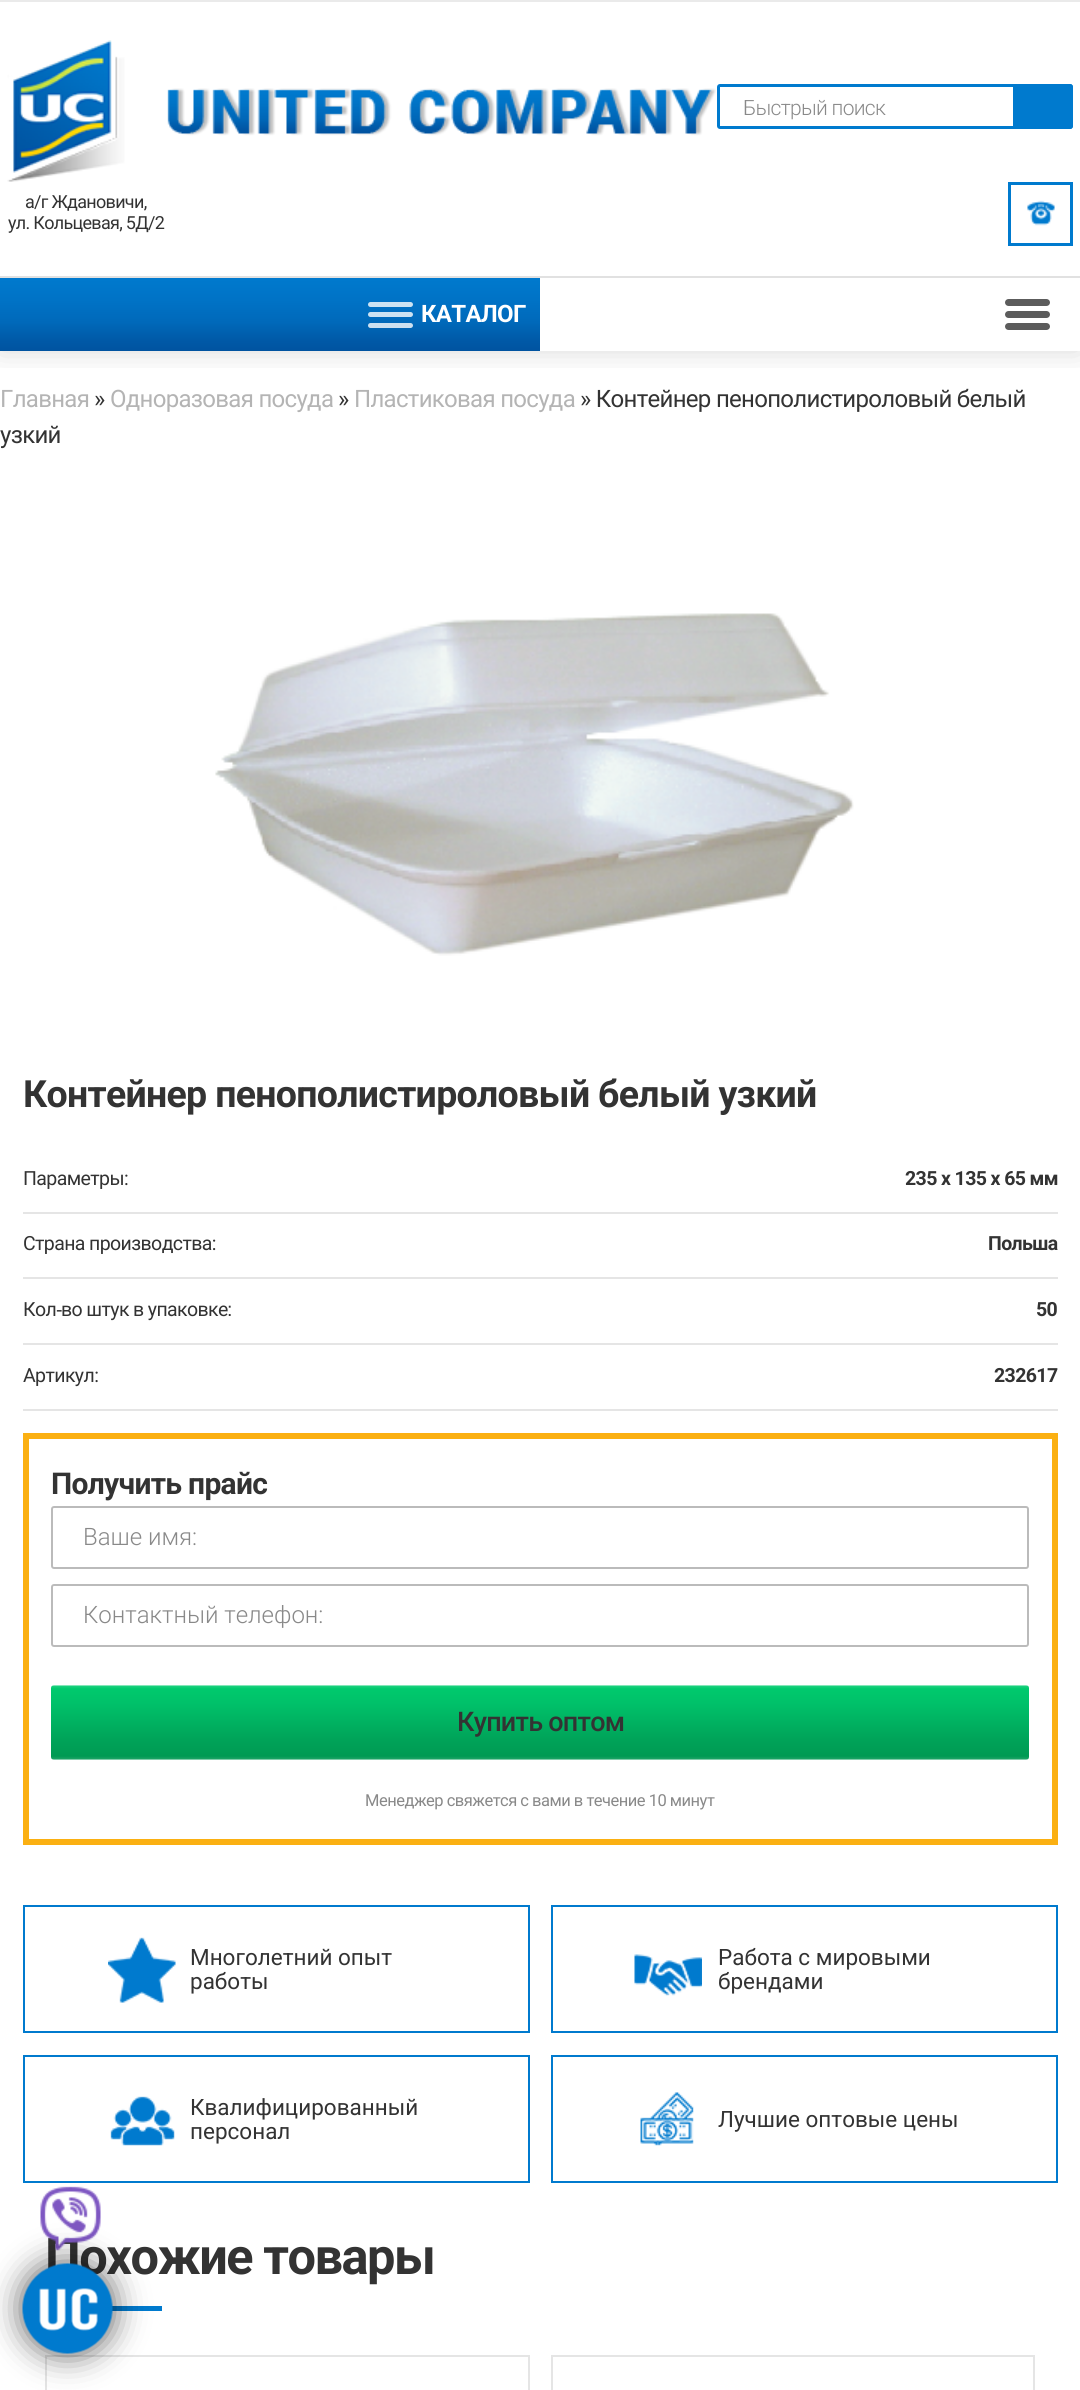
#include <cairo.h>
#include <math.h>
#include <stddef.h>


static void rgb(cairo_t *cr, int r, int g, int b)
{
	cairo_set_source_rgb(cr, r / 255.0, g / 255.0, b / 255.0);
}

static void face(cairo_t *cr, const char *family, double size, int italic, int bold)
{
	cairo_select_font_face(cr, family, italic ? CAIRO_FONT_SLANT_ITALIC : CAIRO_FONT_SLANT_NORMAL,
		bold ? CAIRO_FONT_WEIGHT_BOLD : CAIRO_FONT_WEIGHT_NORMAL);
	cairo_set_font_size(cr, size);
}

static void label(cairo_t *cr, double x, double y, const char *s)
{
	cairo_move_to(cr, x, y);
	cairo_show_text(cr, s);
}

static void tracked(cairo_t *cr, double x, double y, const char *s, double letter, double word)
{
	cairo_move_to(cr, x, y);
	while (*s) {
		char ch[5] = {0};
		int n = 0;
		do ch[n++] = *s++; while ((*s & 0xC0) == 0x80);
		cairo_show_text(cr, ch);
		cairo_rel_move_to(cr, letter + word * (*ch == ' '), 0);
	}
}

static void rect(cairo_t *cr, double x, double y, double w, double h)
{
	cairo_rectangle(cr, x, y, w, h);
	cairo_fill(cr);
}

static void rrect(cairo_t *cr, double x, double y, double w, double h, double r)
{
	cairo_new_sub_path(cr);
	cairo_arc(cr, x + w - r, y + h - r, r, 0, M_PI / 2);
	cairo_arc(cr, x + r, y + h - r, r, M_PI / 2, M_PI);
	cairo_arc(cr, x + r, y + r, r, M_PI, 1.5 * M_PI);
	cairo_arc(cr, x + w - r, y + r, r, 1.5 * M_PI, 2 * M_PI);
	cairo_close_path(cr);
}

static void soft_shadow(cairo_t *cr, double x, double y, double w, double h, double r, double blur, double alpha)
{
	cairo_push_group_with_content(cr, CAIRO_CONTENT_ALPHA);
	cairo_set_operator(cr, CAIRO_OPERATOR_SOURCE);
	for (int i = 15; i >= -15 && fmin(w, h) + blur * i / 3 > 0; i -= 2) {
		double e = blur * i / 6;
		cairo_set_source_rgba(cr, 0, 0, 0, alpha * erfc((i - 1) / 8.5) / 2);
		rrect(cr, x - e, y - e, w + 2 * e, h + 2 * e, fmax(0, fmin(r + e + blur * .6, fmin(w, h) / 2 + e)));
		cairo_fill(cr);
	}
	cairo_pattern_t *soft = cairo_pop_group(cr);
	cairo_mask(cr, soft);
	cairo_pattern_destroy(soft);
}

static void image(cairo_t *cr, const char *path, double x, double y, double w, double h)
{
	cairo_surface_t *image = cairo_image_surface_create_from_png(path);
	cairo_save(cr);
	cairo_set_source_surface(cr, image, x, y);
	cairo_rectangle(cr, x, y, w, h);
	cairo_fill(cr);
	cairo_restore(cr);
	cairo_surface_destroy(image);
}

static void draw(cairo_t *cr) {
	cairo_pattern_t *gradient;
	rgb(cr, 255, 255, 255);
	cairo_paint(cr);
	cairo_save(cr);
	cairo_rectangle(cr, 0, 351, 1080, 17);
	cairo_clip(cr);
	rgb(cr, 0, 0, 0);
	soft_shadow(cr, 0, 0, 1080, 351, 0, 15, 0.15);
	cairo_restore(cr);
	rgb(cr, 234, 234, 234);
	rect(cr, 0, 0, 1080, 2);
	rgb(cr, 225, 225, 225);
	rect(cr, 0, 276, 1080, 2);
	image(cr, "image0.png", 7, 40, 709, 142);
	rrect(cr, 718.5, 85.5, 353, 42, 1.5);
	rgb(cr, 0, 122, 206);
	cairo_set_line_width(cr, 3);
	cairo_stroke(cr);
	face(cr, "Roboto Light", 21, 0, 0);
	rgb(cr, 137, 137, 137);
	tracked(cr, 743, 115, "Быстрый поиск", -0.7, 0);
	rgb(cr, 0, 122, 206);
	rrect(cr, 1013, 84, 60, 45, 3);
	cairo_fill(cr);
	face(cr, "Roboto", 18, 0, 0);
	rgb(cr, 51, 51, 51);
	tracked(cr, 25, 208, "а/г Ждановичи,", -0.7, 0);
	tracked(cr, 8, 229, "ул. Кольцевая, 5Д/2", -0.7, 0);
	cairo_rectangle(cr, 1009.5, 183.5, 62, 61);
	rgb(cr, 0, 122, 206);
	cairo_stroke(cr);
	image(cr, "image1.png", 1027, 200, 28, 26);
	gradient = cairo_pattern_create_linear(270, 277, 270, 351);
	cairo_pattern_add_color_stop_rgba(gradient, 0, 0, 0.478, 0.808, 1);
	cairo_pattern_add_color_stop_rgba(gradient, 0.34, 0, 0.447, 0.773, 1);
	cairo_pattern_add_color_stop_rgba(gradient, 0.61, 0, 0.412, 0.729, 1);
	cairo_pattern_add_color_stop_rgba(gradient, 0.86, 0, 0.349, 0.655, 1);
	cairo_pattern_add_color_stop_rgba(gradient, 1, 0, 0.325, 0.627, 1);
	cairo_set_source(cr, gradient);
	cairo_pattern_destroy(gradient);
	rect(cr, 0, 278, 540, 73);
	rgb(cr, 204, 227, 243);
	rrect(cr, 368, 302, 45, 5, 2.5);
	cairo_fill(cr);
	rgb(cr, 204, 226, 242);
	rrect(cr, 368, 312, 45, 5, 2.5);
	cairo_fill(cr);
	cairo_set_source_rgba(cr, 1, 1, 1, 0.8);
	rrect(cr, 368, 323, 45, 5, 2.5);
	cairo_fill(cr);
	face(cr, "Roboto", 24, 0, 1);
	rgb(cr, 255, 255, 255);
	tracked(cr, 421, 322, "КАТАЛОГ", -0.7, 0);
	rgb(cr, 92, 92, 92);
	rrect(cr, 1005, 299, 45, 7, 3.5);
	cairo_fill(cr);
	rrect(cr, 1005, 311, 45, 7, 3.5);
	cairo_fill(cr);
	rrect(cr, 1005, 323, 45, 7, 3.5);
	cairo_fill(cr);
	face(cr, "Roboto", 24, 0, 0);
	rgb(cr, 180, 180, 180);
	tracked(cr, 0, 407, "Главная", -0.7, 0);
	rgb(cr, 51, 51, 51);
	tracked(cr, 94, 407, "»", -0.7, 0);
	rgb(cr, 180, 180, 180);
	tracked(cr, 110, 407, "Одноразовая посуда", -0.7, 0);
	rgb(cr, 51, 51, 51);
	tracked(cr, 338, 407, "»", -0.7, 0);
	rgb(cr, 180, 180, 180);
	tracked(cr, 354, 407, "Пластиковая посуда", -0.7, 0);
	rgb(cr, 51, 51, 51);
	tracked(cr, 580, 407, "» Контейнер пенополистироловый белый", -0.7, 0);
	tracked(cr, 0, 443, "узкий", -0.7, 0);
	image(cr, "image2.png", 215, 613, 639, 343);
	face(cr, "Roboto", 37.5, 0, 1);
	tracked(cr, 23, 1107, "Контейнер пенополистироловый белый узкий", -0.7, 0);
	rgb(cr, 229, 229, 229);
	rect(cr, 23, 1212, 1035, 2);
	face(cr, "Roboto", 19.5, 0, 0);
	rgb(cr, 51, 51, 51);
	tracked(cr, 23, 1185, "Параметры:", -0.6, 0);
	face(cr, "Roboto", 19.5, 0, 1);
	tracked(cr, 905, 1185, "235 х 135 х 65 мм", -0.6, 0);
	rgb(cr, 229, 229, 229);
	rect(cr, 23, 1277, 1035, 2);
	face(cr, "Roboto", 19.5, 0, 0);
	rgb(cr, 51, 51, 51);
	tracked(cr, 23, 1250, "Страна производства:", -0.6, 0);
	face(cr, "Roboto", 19.5, 0, 1);
	tracked(cr, 988, 1250, "Польша", -0.6, 0);
	rgb(cr, 229, 229, 229);
	rect(cr, 23, 1343, 1035, 2);
	face(cr, "Roboto", 19.5, 0, 0);
	rgb(cr, 51, 51, 51);
	tracked(cr, 23, 1316, "Кол", -0.6, 0);
	face(cr, "Liberation Sans", 19.5, 0, 0);
	tracked(cr, 56, 1316, "‐", -0.6, 0);
	face(cr, "Roboto", 19.5, 0, 0);
	tracked(cr, 61, 1316, "во штук в упаковке", -0.6, 0);
	face(cr, "Liberation Sans", 19.5, 0, 0);
	tracked(cr, 227, 1316, ":", -0.6, 0);
	face(cr, "Roboto", 19.5, 0, 1);
	tracked(cr, 1036, 1316, "50", -0.6, 0);
	rgb(cr, 229, 229, 229);
	rect(cr, 23, 1409, 1035, 2);
	face(cr, "Roboto", 19.5, 0, 0);
	rgb(cr, 51, 51, 51);
	tracked(cr, 23, 1382, "Артикул:", -0.6, 0);
	face(cr, "Roboto", 19.5, 0, 1);
	tracked(cr, 994, 1382, "232617", -0.6, 0);
	cairo_rectangle(cr, 26, 1436, 1029, 406);
	rgb(cr, 251, 176, 18);
	cairo_set_line_width(cr, 6);
	cairo_stroke(cr);
	face(cr, "Roboto", 30, 0, 1);
	rgb(cr, 51, 51, 51);
	tracked(cr, 51, 1494, "Получить прайс", -0.7, 0);
	rrect(cr, 52, 1507, 976, 61, 2);
	rgb(cr, 187, 187, 187);
	cairo_set_line_width(cr, 2);
	cairo_stroke(cr);
	face(cr, "Roboto Light", 24, 0, 0);
	rgb(cr, 137, 137, 137);
	label(cr, 83, 1545, "Ваше имя:");
	rrect(cr, 52, 1585, 976, 61, 2);
	rgb(cr, 187, 187, 187);
	cairo_stroke(cr);
	rgb(cr, 137, 137, 137);
	label(cr, 83, 1623, "Контактный телефон:");
	gradient = cairo_pattern_create_linear(540, 1685, 540, 1760);
	cairo_pattern_add_color_stop_rgba(gradient, 0, 0.722, 0.945, 0.839, 1);
	cairo_pattern_add_color_stop_rgba(gradient, 0.02, 0.09, 0.812, 0.482, 1);
	cairo_pattern_add_color_stop_rgba(gradient, 0.05, 0, 0.788, 0.427, 1);
	cairo_pattern_add_color_stop_rgba(gradient, 0.23, 0, 0.761, 0.416, 1);
	cairo_pattern_add_color_stop_rgba(gradient, 0.75, 0, 0.635, 0.345, 1);
	cairo_pattern_add_color_stop_rgba(gradient, 0.95, 0, 0.604, 0.325, 1);
	cairo_pattern_add_color_stop_rgba(gradient, 0.98, 0.09, 0.635, 0.384, 1);
	cairo_pattern_add_color_stop_rgba(gradient, 1, 0.71, 0.882, 0.804, 1);
	cairo_set_source(cr, gradient);
	cairo_pattern_destroy(gradient);
	rrect(cr, 51, 1685, 978, 75, 3);
	cairo_fill(cr);
	face(cr, "Roboto Medium", 27, 0, 0);
	rgb(cr, 51, 51, 51);
	tracked(cr, 457, 1731, "Купить оптом", -0.75, 0);
	face(cr, "Roboto", 16.5, 0, 0);
	rgb(cr, 137, 137, 137);
	tracked(cr, 365, 1806, "Менеджер свяжется с вами в течение 10 минут", -0.5, 0);
	cairo_rectangle(cr, 24, 1906, 505, 126);
	rgb(cr, 0, 122, 206);
	cairo_stroke(cr);
	image(cr, "image3.png", 108, 1937, 68, 66);
	face(cr, "Roboto", 22.5, 0, 0);
	rgb(cr, 51, 51, 51);
	label(cr, 190, 1965, "Многолетний опыт");
	label(cr, 190, 1989, "работы");
	cairo_rectangle(cr, 552, 1906, 505, 126);
	rgb(cr, 0, 122, 206);
	cairo_stroke(cr);
	image(cr, "image4.png", 634, 1954, 68, 42);
	rgb(cr, 51, 51, 51);
	label(cr, 718, 1965, "Работа с мировыми");
	label(cr, 718, 1989, "брендами");
	cairo_rectangle(cr, 24, 2056, 505, 126);
	rgb(cr, 0, 122, 206);
	cairo_stroke(cr);
	image(cr, "image5.png", 110, 2096, 65, 50);
	rgb(cr, 51, 51, 51);
	label(cr, 190, 2115, "Квалифицированный");
	label(cr, 190, 2139, "персонал");
	cairo_rectangle(cr, 552, 2056, 505, 126);
	rgb(cr, 0, 122, 206);
	cairo_stroke(cr);
	image(cr, "image6.png", 640, 2092, 54, 54);
	rgb(cr, 51, 51, 51);
	label(cr, 718, 2127, "Лучшие оптовые цены");
	face(cr, "Roboto", 50.5, 0, 1);
	tracked(cr, 45, 2274, "Похожие товары", -1.5, 0);
	rgb(cr, 0, 122, 206);
	rect(cr, 111, 2306, 51, 5);
	cairo_rectangle(cr, 46, 2356, 483, 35);
	rgb(cr, 229, 229, 229);
	cairo_stroke(cr);
	cairo_rectangle(cr, 552, 2356, 482, 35);
	cairo_stroke(cr);
	image(cr, "image7.png", 40, 2186, 61, 65);
	rgb(cr, 0, 0, 0);
	soft_shadow(cr, 21, 2262, 93, 93, 46.5, 16, 0.6);
	image(cr, "image8.png", 22, 2263, 91, 91);
}

int main(void) {
	cairo_surface_t *surface = cairo_image_surface_create(CAIRO_FORMAT_RGB24, 1080, 2390);
	cairo_t *cr = cairo_create(surface);
	cairo_font_options_t *options = cairo_font_options_create();
	cairo_font_options_set_hint_metrics(options, CAIRO_HINT_METRICS_OFF);
	cairo_font_options_set_hint_style(options, CAIRO_HINT_STYLE_NONE);
	cairo_set_font_options(cr, options);
	cairo_set_miter_limit(cr, 4);
	draw(cr);
	cairo_surface_write_to_png(surface, "render.png");
	cairo_font_options_destroy(options);
	cairo_destroy(cr);
	cairo_surface_destroy(surface);
	return 0;
}
